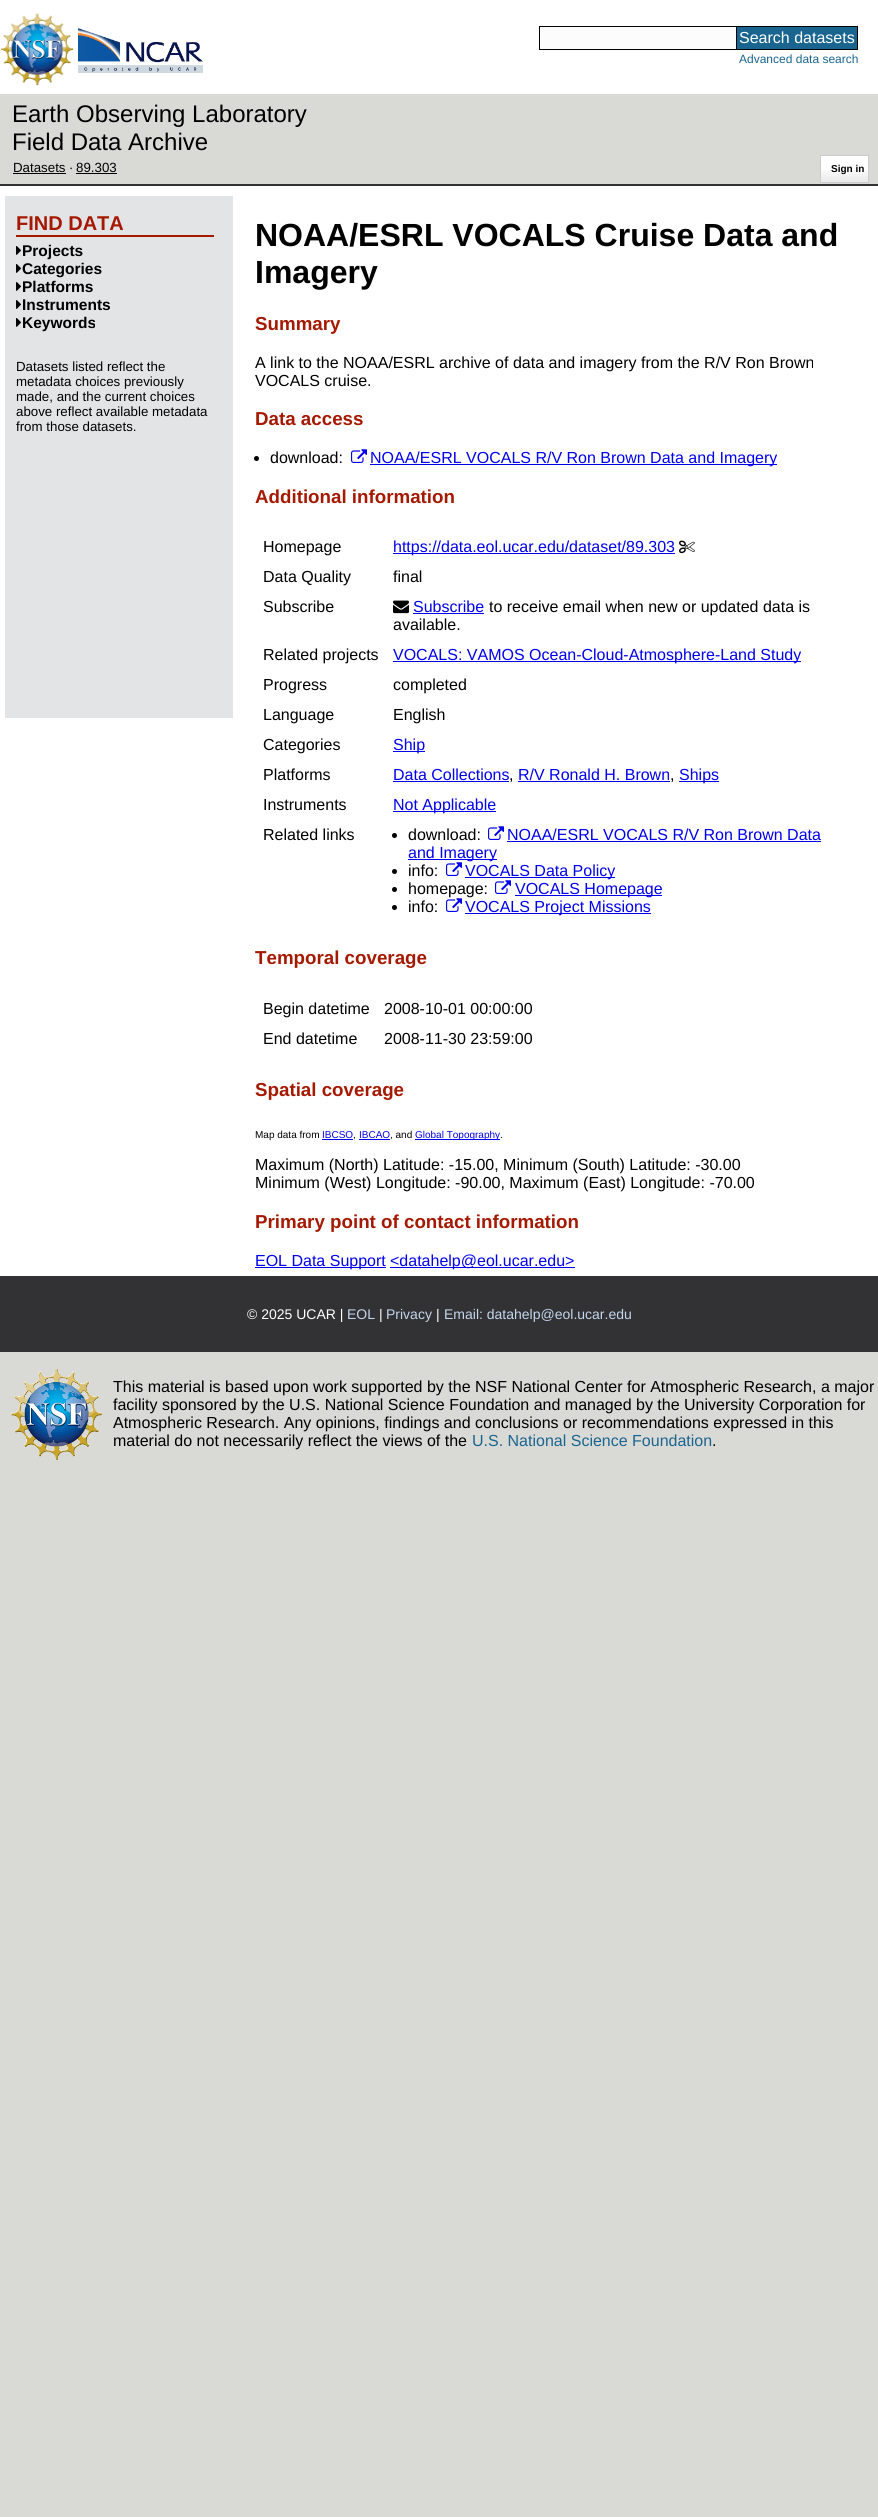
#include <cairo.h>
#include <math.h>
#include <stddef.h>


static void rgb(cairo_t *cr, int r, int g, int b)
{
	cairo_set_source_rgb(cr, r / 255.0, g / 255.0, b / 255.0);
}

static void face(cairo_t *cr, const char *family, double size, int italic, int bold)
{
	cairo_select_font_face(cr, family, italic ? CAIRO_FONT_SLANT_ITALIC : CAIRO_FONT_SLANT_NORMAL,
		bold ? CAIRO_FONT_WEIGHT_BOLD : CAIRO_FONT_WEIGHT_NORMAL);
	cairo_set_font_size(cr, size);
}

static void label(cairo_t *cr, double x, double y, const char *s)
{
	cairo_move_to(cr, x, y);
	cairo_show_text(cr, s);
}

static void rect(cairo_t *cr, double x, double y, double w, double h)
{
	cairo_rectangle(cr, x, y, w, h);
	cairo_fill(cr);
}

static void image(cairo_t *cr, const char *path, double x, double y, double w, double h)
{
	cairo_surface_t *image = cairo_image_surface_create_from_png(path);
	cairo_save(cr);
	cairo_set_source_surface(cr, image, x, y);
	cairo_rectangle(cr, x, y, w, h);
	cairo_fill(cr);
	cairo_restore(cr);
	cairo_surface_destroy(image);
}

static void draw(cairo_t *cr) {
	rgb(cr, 217, 217, 214);
	cairo_paint(cr);
	rgb(cr, 255, 255, 255);
	rect(cr, 0, 0, 878, 94);
	image(cr, "image0.png", 1, 13, 73, 73);
	image(cr, "image1.png", 78, 28, 125, 45);
	rgb(cr, 252, 252, 252);
	rect(cr, 540, 27, 196, 22);
	rgb(cr, 0, 0, 0);
	rect(cr, 539, 26, 197, 1);
	rect(cr, 539, 49, 197, 1);
	rect(cr, 539, 26, 1, 24);
	rgb(cr, 26, 101, 143);
	cairo_rectangle(cr, 736.5, 26.5, 121, 23);
	cairo_fill_preserve(cr);
	rgb(cr, 0, 0, 0);
	cairo_set_line_width(cr, 1);
	cairo_stroke(cr);
	face(cr, "Liberation Sans", 16, 0, 0);
	rgb(cr, 255, 255, 255);
	label(cr, 739, 43, "Search datasets");
	face(cr, "Liberation Sans", 12, 0, 0);
	rgb(cr, 26, 101, 143);
	label(cr, 739, 63, "Advanced data search");
	rgb(cr, 50, 49, 51);
	rect(cr, 0, 184, 878, 2);
	face(cr, "Liberation Sans", 24, 0, 0);
	rgb(cr, 0, 0, 0);
	label(cr, 12, 122, "Earth Observing Laboratory");
	label(cr, 12, 150, "Field Data Archive");
	face(cr, "Liberation Sans", 13.3, 0, 0);
	label(cr, 13, 172, "Datasets ∙");
	rect(cr, 13, 173, 53, 1);
	label(cr, 76, 172, "89.303");
	rect(cr, 76, 173, 41, 1);
	rgb(cr, 255, 255, 255);
	rect(cr, 821, 156, 47, 14);
	image(cr, "image2.png", 821, 170, 47, 12);
	cairo_rectangle(cr, 820.5, 155.5, 48, 27);
	rgb(cr, 204, 204, 204);
	cairo_stroke(cr);
	face(cr, "Liberation Sans", 10, 0, 1);
	rgb(cr, 0, 0, 0);
	label(cr, 831, 172, "Sign in");
	rgb(cr, 255, 255, 255);
	rect(cr, 0, 186, 878, 1090);
	rgb(cr, 227, 228, 230);
	rect(cr, 5, 196, 228, 522);
	rgb(cr, 165, 25, 1);
	rect(cr, 16, 235, 198, 2);
	face(cr, "Liberation Sans", 20, 0, 1);
	label(cr, 16, 230, "FIND DATA");
	image(cr, "image3.png", 16, 246, 5, 9);
	face(cr, "Liberation Sans", 15.5, 0, 1);
	rgb(cr, 0, 0, 0);
	label(cr, 22, 256, "Projects");
	image(cr, "image3.png", 16, 264, 5, 9);
	label(cr, 22, 274, "Categories");
	image(cr, "image3.png", 16, 282, 5, 9);
	label(cr, 22, 292, "Platforms");
	image(cr, "image3.png", 16, 300, 5, 9);
	label(cr, 22, 310, "Instruments");
	image(cr, "image3.png", 16, 318, 5, 9);
	label(cr, 22, 328, "Keywords");
	face(cr, "Liberation Sans", 13.3, 0, 0);
	label(cr, 16, 371, "Datasets listed reflect the");
	label(cr, 16, 386, "metadata choices previously");
	label(cr, 16, 401, "made, and the current choices");
	label(cr, 16, 416, "above reflect available metadata");
	label(cr, 16, 431, "from those datasets.");
	face(cr, "Liberation Sans", 32, 0, 1);
	label(cr, 255, 246, "NOAA/ESRL VOCALS Cruise Data and");
	label(cr, 255, 283, "Imagery");
	face(cr, "Liberation Sans", 18.75, 0, 1);
	rgb(cr, 165, 25, 1);
	label(cr, 255, 330, "Summary");
	face(cr, "Liberation Sans", 16, 0, 0);
	rgb(cr, 0, 0, 0);
	label(cr, 255, 368, "A link to the NOAA/ESRL archive of data and imagery from the R/V Ron Brown");
	label(cr, 255, 386, "VOCALS cruise.");
	face(cr, "Liberation Sans", 18.75, 0, 1);
	rgb(cr, 165, 25, 1);
	label(cr, 255, 425, "Data access");
	rgb(cr, 0, 0, 0);
	cairo_new_path(cr);
	cairo_arc(cr, 256.5, 458.5, 2.5, 0, 2 * M_PI);
	cairo_fill(cr);
	face(cr, "Liberation Sans", 16, 0, 0);
	label(cr, 270, 463, "download:");
	image(cr, "image4.png", 351, 449, 16, 14);
	rgb(cr, 0, 0, 238);
	rect(cr, 370, 464, 407, 1);
	label(cr, 370, 463, "NOAA/ESRL VOCALS R/V Ron Brown Data and Imagery");
	face(cr, "Liberation Sans", 18.75, 0, 1);
	rgb(cr, 165, 25, 1);
	label(cr, 255, 503, "Additional information");
	face(cr, "Liberation Sans", 16, 0, 0);
	rgb(cr, 0, 0, 0);
	label(cr, 263, 552, "Homepage");
	rgb(cr, 0, 0, 238);
	rect(cr, 393, 553, 282, 1);
	label(cr, 393, 552, "https://data.eol.ucar.edu/dataset/89.303");
	image(cr, "image5.png", 679, 540, 16, 14);
	rgb(cr, 0, 0, 0);
	label(cr, 263, 582, "Data Quality");
	label(cr, 393, 582, "final");
	label(cr, 263, 612, "Subscribe");
	image(cr, "image6.png", 393, 600, 16, 14);
	rgb(cr, 0, 0, 238);
	label(cr, 413, 612, "Subscribe");
	rect(cr, 413, 613, 71, 1);
	rgb(cr, 0, 0, 0);
	label(cr, 489, 612, "to receive email when new or updated data is");
	label(cr, 393, 630, "available.");
	label(cr, 263, 660, "Related projects");
	rgb(cr, 0, 0, 238);
	rect(cr, 393, 661, 408, 1);
	label(cr, 393, 660, "VOCALS: VAMOS Ocean-Cloud-Atmosphere-Land Study");
	rgb(cr, 0, 0, 0);
	label(cr, 263, 690, "Progress");
	label(cr, 393, 690, "completed");
	label(cr, 263, 720, "Language");
	label(cr, 393, 720, "English");
	label(cr, 263, 750, "Categories");
	rgb(cr, 0, 0, 238);
	rect(cr, 393, 751, 32, 1);
	label(cr, 393, 750, "Ship");
	rgb(cr, 0, 0, 0);
	label(cr, 263, 780, "Platforms");
	rgb(cr, 0, 0, 238);
	label(cr, 393, 780, "Data Collections");
	rect(cr, 393, 781, 116, 1);
	rgb(cr, 0, 0, 0);
	label(cr, 509, 780, ",");
	rgb(cr, 0, 0, 238);
	label(cr, 518, 780, "R/V Ronald H. Brown");
	rect(cr, 518, 781, 152, 1);
	rgb(cr, 0, 0, 0);
	label(cr, 670, 780, ",");
	rgb(cr, 0, 0, 238);
	rect(cr, 679, 781, 40, 1);
	label(cr, 679, 780, "Ships");
	rgb(cr, 0, 0, 0);
	label(cr, 263, 810, "Instruments");
	rgb(cr, 0, 0, 238);
	rect(cr, 393, 811, 103, 1);
	label(cr, 393, 810, "Not Applicable");
	rgb(cr, 0, 0, 0);
	label(cr, 263, 840, "Related links");
	cairo_new_path(cr);
	cairo_arc(cr, 394.5, 835.5, 2.5, 0, 2 * M_PI);
	cairo_fill(cr);
	label(cr, 408, 840, "download:");
	image(cr, "image4.png", 488, 826, 16, 14);
	rgb(cr, 0, 0, 238);
	label(cr, 507, 840, "NOAA/ESRL VOCALS R/V Ron Brown Data");
	rect(cr, 507, 841, 314, 1);
	rect(cr, 408, 859, 89, 1);
	label(cr, 408, 858, "and Imagery");
	rgb(cr, 0, 0, 0);
	cairo_new_path(cr);
	cairo_arc(cr, 394.5, 871.5, 2.5, 0, 2 * M_PI);
	cairo_fill(cr);
	label(cr, 408, 876, "info:");
	image(cr, "image4.png", 446, 862, 16, 14);
	rgb(cr, 0, 0, 238);
	rect(cr, 465, 877, 150, 1);
	label(cr, 465, 876, "VOCALS Data Policy");
	rgb(cr, 0, 0, 0);
	cairo_new_path(cr);
	cairo_arc(cr, 394.5, 889.5, 2.5, 0, 2 * M_PI);
	cairo_fill(cr);
	label(cr, 408, 894, "homepage:");
	image(cr, "image4.png", 495, 880, 16, 14);
	rgb(cr, 0, 0, 238);
	rect(cr, 515, 895, 147, 1);
	label(cr, 515, 894, "VOCALS Homepage");
	rgb(cr, 0, 0, 0);
	cairo_new_path(cr);
	cairo_arc(cr, 394.5, 907.5, 2.5, 0, 2 * M_PI);
	cairo_fill(cr);
	label(cr, 408, 912, "info:");
	image(cr, "image4.png", 446, 898, 16, 14);
	rgb(cr, 0, 0, 238);
	rect(cr, 465, 913, 186, 1);
	label(cr, 465, 912, "VOCALS Project Missions");
	face(cr, "Liberation Sans", 18.75, 0, 1);
	rgb(cr, 165, 25, 1);
	label(cr, 255, 964, "Temporal coverage");
	face(cr, "Liberation Sans", 16, 0, 0);
	rgb(cr, 0, 0, 0);
	label(cr, 263, 1014, "Begin datetime");
	label(cr, 384, 1014, "2008-10-01 00:00:00");
	label(cr, 263, 1044, "End datetime");
	label(cr, 384, 1044, "2008-11-30 23:59:00");
	face(cr, "Liberation Sans", 18.75, 0, 1);
	rgb(cr, 165, 25, 1);
	label(cr, 255, 1096, "Spatial coverage");
	face(cr, "Liberation Sans", 10, 0, 0);
	rgb(cr, 0, 0, 0);
	label(cr, 255, 1138, "Map data from");
	rgb(cr, 0, 0, 238);
	label(cr, 322, 1138, "IBCSO");
	rgb(cr, 0, 0, 0);
	label(cr, 353, 1138, ",");
	rgb(cr, 0, 0, 238);
	rect(cr, 322, 1139, 31, 1);
	rect(cr, 359, 1139, 31, 1);
	label(cr, 359, 1138, "IBCAO");
	rgb(cr, 0, 0, 0);
	label(cr, 390, 1138, ", and");
	rgb(cr, 0, 0, 238);
	rect(cr, 415, 1139, 85, 1);
	label(cr, 415, 1138, "Global Topography");
	rgb(cr, 0, 0, 0);
	label(cr, 500, 1138, ".");
	face(cr, "Liberation Sans", 16, 0, 0);
	label(cr, 255, 1170, "Maximum (North) Latitude: -15.00, Minimum (South) Latitude: -30.00");
	label(cr, 255, 1188, "Minimum (West) Longitude: -90.00, Maximum (East) Longitude: -70.00");
	face(cr, "Liberation Sans", 18.75, 0, 1);
	rgb(cr, 165, 25, 1);
	label(cr, 255, 1228, "Primary point of contact information");
	rgb(cr, 0, 0, 238);
	rect(cr, 255, 1267, 131, 1);
	face(cr, "Liberation Sans", 16, 0, 0);
	label(cr, 255, 1266, "EOL Data Support");
	rect(cr, 390, 1267, 185, 1);
	label(cr, 390, 1266, "<datahelp@eol.ucar.edu>");
	rgb(cr, 50, 49, 51);
	rect(cr, 0, 1276, 878, 76);
	face(cr, "Liberation Sans", 14, 0, 0);
	rgb(cr, 255, 255, 255);
	label(cr, 247, 1319, "© 2025 UCAR |");
	rgb(cr, 195, 215, 238);
	label(cr, 347, 1319, "EOL");
	rgb(cr, 255, 255, 255);
	label(cr, 379, 1319, "|");
	rgb(cr, 195, 215, 238);
	label(cr, 386, 1319, "Privacy");
	rgb(cr, 255, 255, 255);
	label(cr, 436, 1319, "|");
	rgb(cr, 195, 215, 238);
	label(cr, 444, 1319, "Email: datahelp@eol.ucar.edu");
	image(cr, "image7.png", 11, 1368, 91, 92);
	face(cr, "Liberation Sans", 16, 0, 0);
	rgb(cr, 0, 0, 0);
	label(cr, 113, 1392, "This material is based upon work supported by the NSF National Center for Atmospheric Research, a major");
	label(cr, 113, 1410, "facility sponsored by the U.S. National Science Foundation and managed by the University Corporation for");
	label(cr, 113, 1428, "Atmospheric Research. Any opinions, findings and conclusions or recommendations expressed in this");
	label(cr, 113, 1446, "material do not necessarily reflect the views of the");
	rgb(cr, 26, 101, 143);
	label(cr, 472, 1446, "U.S. National Science Foundation");
	rgb(cr, 0, 0, 0);
	label(cr, 712, 1446, ".");
}

int main(void) {
	cairo_surface_t *surface = cairo_image_surface_create(CAIRO_FORMAT_RGB24, 878, 2517);
	cairo_t *cr = cairo_create(surface);
	cairo_font_options_t *options = cairo_font_options_create();
	cairo_font_options_set_hint_metrics(options, CAIRO_HINT_METRICS_OFF);
	cairo_font_options_set_hint_style(options, CAIRO_HINT_STYLE_NONE);
	cairo_set_font_options(cr, options);
	cairo_set_miter_limit(cr, 4);
	draw(cr);
	cairo_surface_write_to_png(surface, "render.png");
	cairo_font_options_destroy(options);
	cairo_destroy(cr);
	cairo_surface_destroy(surface);
	return 0;
}
